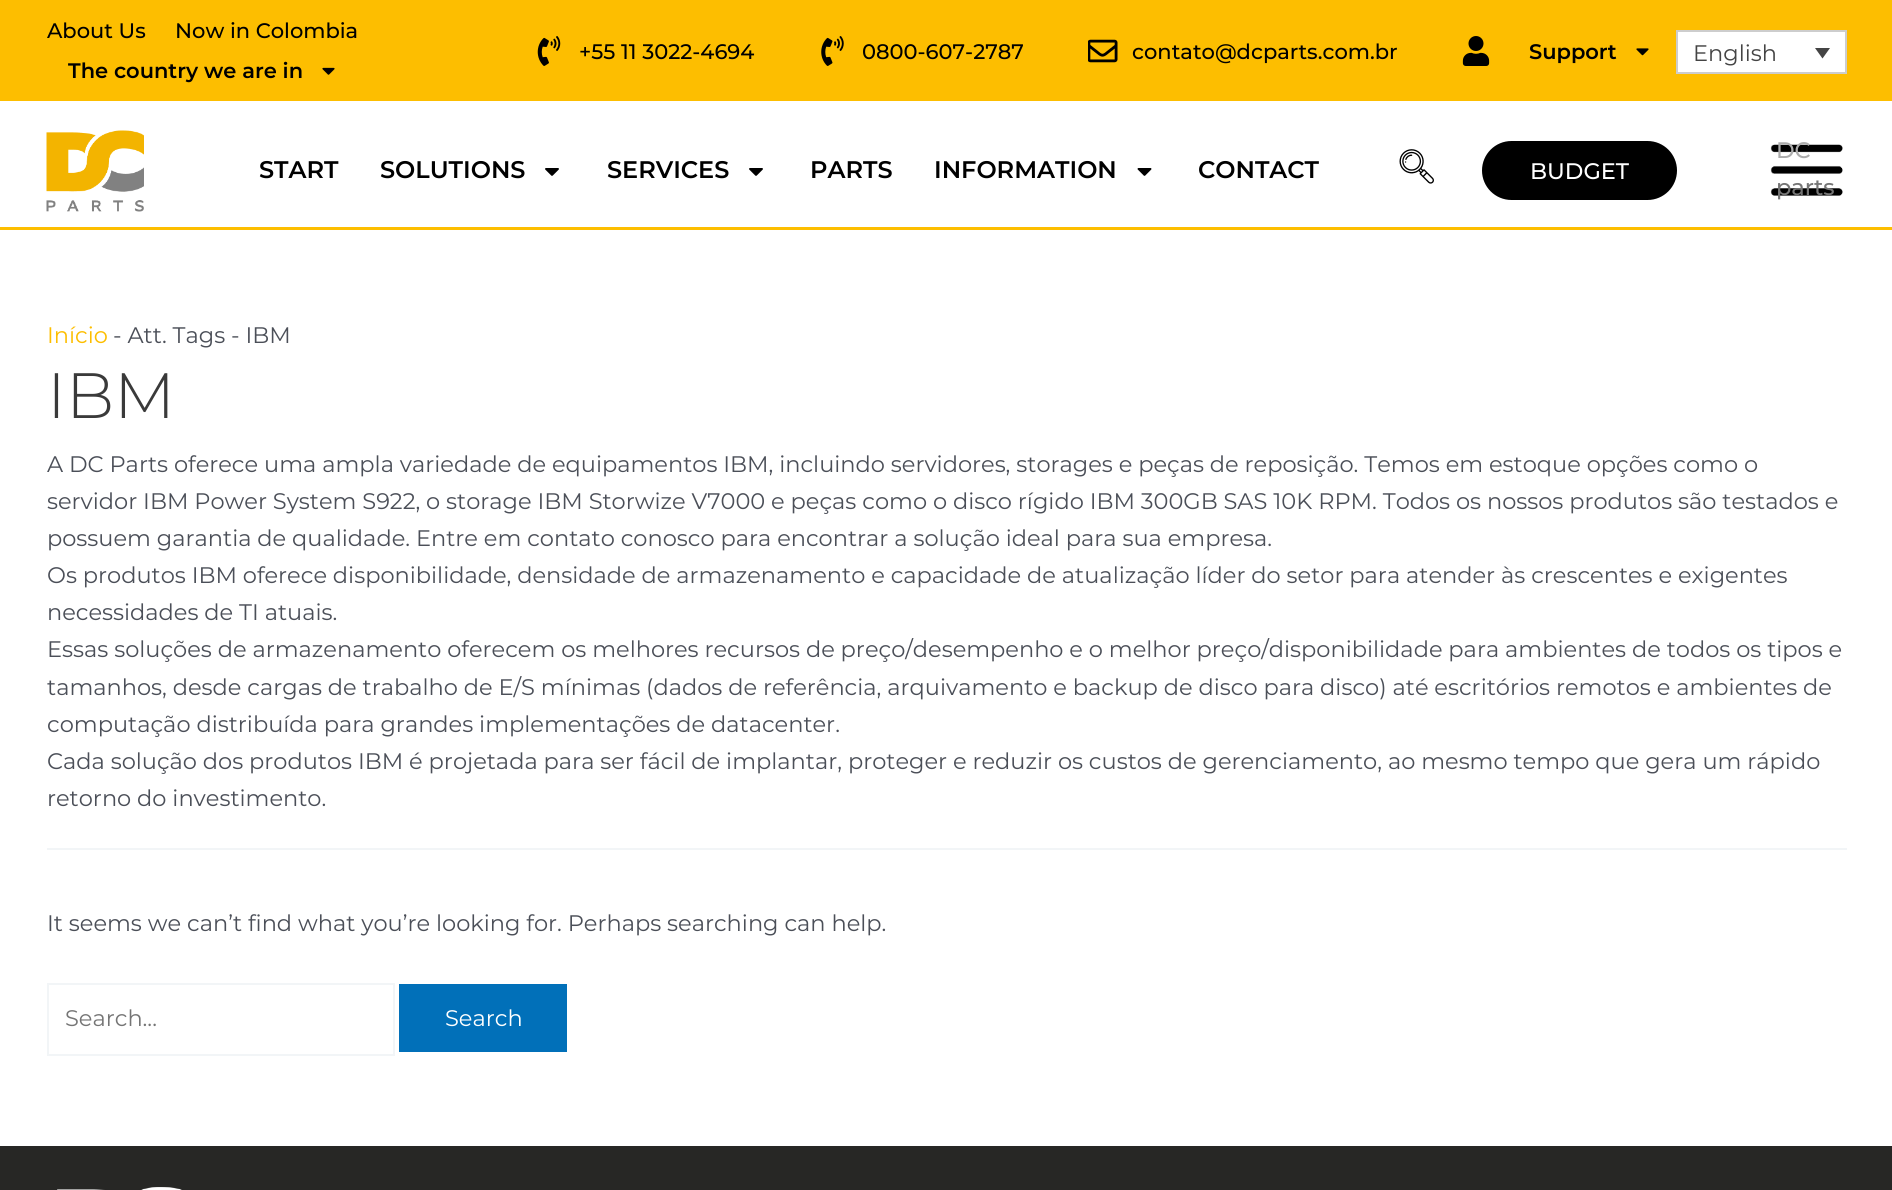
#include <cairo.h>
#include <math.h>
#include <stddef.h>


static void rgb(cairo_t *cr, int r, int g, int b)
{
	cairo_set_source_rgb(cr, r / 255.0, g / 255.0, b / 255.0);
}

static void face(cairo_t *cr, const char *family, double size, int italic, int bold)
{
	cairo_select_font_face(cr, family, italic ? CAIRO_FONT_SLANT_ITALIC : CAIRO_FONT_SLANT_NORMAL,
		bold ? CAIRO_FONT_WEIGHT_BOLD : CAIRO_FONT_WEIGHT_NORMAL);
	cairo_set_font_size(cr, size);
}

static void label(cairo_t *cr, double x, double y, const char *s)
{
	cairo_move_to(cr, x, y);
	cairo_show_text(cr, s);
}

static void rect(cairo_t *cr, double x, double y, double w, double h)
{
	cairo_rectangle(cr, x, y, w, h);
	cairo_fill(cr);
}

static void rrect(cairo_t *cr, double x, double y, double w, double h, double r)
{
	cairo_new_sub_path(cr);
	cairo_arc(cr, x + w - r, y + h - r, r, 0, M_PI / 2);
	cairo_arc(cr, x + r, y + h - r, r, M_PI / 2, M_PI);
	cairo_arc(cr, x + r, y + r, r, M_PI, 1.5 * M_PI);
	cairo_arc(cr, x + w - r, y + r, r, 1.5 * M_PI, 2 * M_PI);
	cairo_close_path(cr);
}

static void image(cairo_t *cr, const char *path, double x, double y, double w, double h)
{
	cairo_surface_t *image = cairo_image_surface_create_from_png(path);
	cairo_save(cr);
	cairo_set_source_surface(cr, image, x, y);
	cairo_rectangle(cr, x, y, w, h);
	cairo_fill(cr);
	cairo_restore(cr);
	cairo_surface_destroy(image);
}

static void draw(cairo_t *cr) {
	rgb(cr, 255, 255, 255);
	cairo_paint(cr);
	rgb(cr, 253, 190, 0);
	rect(cr, 0, 0, 1892, 101);
	face(cr, "Montserrat Medium", 21, 0, 0);
	rgb(cr, 0, 0, 0);
	label(cr, 47, 38, "About Us");
	label(cr, 175, 38, "Now in Colombia");
	face(cr, "Montserrat SemiBold", 21, 0, 0);
	label(cr, 68, 78, "The country we are in");
	image(cr, "image0.png", 322, 67, 13, 8);
	image(cr, "image1.png", 537, 36, 24, 30);
	face(cr, "Montserrat Medium", 21, 0, 0);
	label(cr, 579, 59, "+55 11 3022-4694");
	image(cr, "image2.png", 821, 36, 23, 30);
	label(cr, 862, 59, "0800-607-2787");
	image(cr, "image3.png", 1088, 39, 30, 24);
	label(cr, 1132, 59, "contato@dcparts.com.br");
	image(cr, "image4.png", 1462, 36, 28, 30);
	face(cr, "Montserrat SemiBold", 21, 0, 0);
	label(cr, 1529, 59, "Support");
	image(cr, "image5.png", 1636, 48, 13, 8);
	rgb(cr, 255, 255, 255);
	cairo_rectangle(cr, 1677, 31, 169, 42);
	cairo_fill_preserve(cr);
	rgb(cr, 205, 205, 205);
	cairo_stroke(cr);
	face(cr, "Montserrat", 22.5, 0, 0);
	rgb(cr, 68, 68, 68);
	label(cr, 1693, 61, "English");
	cairo_new_path(cr);
	cairo_move_to(cr, 1815, 48);
	cairo_line_to(cr, 1830, 48);
	cairo_line_to(cr, 1822.5, 58.5);
	cairo_close_path(cr);
	cairo_fill(cr);
	rgb(cr, 253, 190, 0);
	rect(cr, 0, 227, 1892, 3);
	image(cr, "image6.png", 46, 130, 98, 82);
	face(cr, "Montserrat SemiBold", 24, 0, 0);
	rgb(cr, 0, 0, 0);
	label(cr, 259, 178, "START");
	label(cr, 380, 178, "SOLUTIONS");
	image(cr, "image7.png", 545, 168, 14, 8);
	label(cr, 607, 178, "SERVICES");
	image(cr, "image7.png", 749, 168, 14, 8);
	label(cr, 810, 178, "PARTS");
	label(cr, 934, 178, "INFORMATION");
	image(cr, "image8.png", 1137, 168, 15, 8);
	label(cr, 1198, 178, "CONTACT");
	image(cr, "image9.png", 1399, 149, 35, 35);
	rrect(cr, 1483.5, 142.5, 192, 56, 28);
	cairo_fill_preserve(cr);
	cairo_set_line_width(cr, 3);
	cairo_stroke(cr);
	face(cr, "Montserrat Medium", 22.5, 0, 0);
	rgb(cr, 255, 255, 255);
	label(cr, 1530, 179, "BUDGET");
	image(cr, "image10.png", 1770, 144, 73, 52);
	rgb(cr, 172, 172, 172);
	label(cr, 1776, 158, "DC");
	rgb(cr, 117, 117, 117);
	label(cr, 1776, 195, "parts");
	rgb(cr, 242, 245, 247);
	rect(cr, 47, 848, 1800, 2);
	face(cr, "Montserrat", 22.5, 0, 0);
	rgb(cr, 253, 190, 0);
	label(cr, 47, 343, "Início");
	rgb(cr, 75, 79, 88);
	label(cr, 113, 343, "- Att. Tags - IBM");
	face(cr, "Montserrat Light", 64, 0, 0);
	rgb(cr, 58, 58, 58);
	label(cr, 47, 418, "IBM");
	face(cr, "Montserrat", 22.5, 0, 0);
	rgb(cr, 75, 79, 88);
	label(cr, 47, 472, "A DC Parts oferece uma ampla variedade de equipamentos IBM, incluindo servidores, storages e peças de reposição. Temos em estoque opções como o");
	label(cr, 47, 509, "servidor IBM Power System S922, o storage IBM Storwize V7000 e peças como o disco rígido IBM 300GB SAS 10K RPM. Todos os nossos produtos são testados e");
	label(cr, 47, 546, "possuem garantia de qualidade. Entre em contato conosco para encontrar a solução ideal para sua empresa.");
	label(cr, 47, 583, "Os produtos IBM oferece disponibilidade, densidade de armazenamento e capacidade de atualização líder do setor para atender às crescentes e exigentes");
	label(cr, 47, 620, "necessidades de TI atuais.");
	label(cr, 47, 657, "Essas soluções de armazenamento oferecem os melhores recursos de preço/desempenho e o melhor preço/disponibilidade para ambientes de todos os tipos e");
	label(cr, 47, 695, "tamanhos, desde cargas de trabalho de E/S mínimas (dados de referência, arquivamento e backup de disco para disco) até escritórios remotos e ambientes de");
	label(cr, 47, 732, "computação distribuída para grandes implementações de datacenter.");
	label(cr, 47, 769, "Cada solução dos produtos IBM é projetada para ser fácil de implantar, proteger e reduzir os custos de gerenciamento, ao mesmo tempo que gera um rápido");
	label(cr, 47, 806, "retorno do investimento.");
	label(cr, 47, 931, "It seems we can’t find what you’re looking for. Perhaps searching can help.");
	cairo_rectangle(cr, 48, 984, 346, 71);
	rgb(cr, 242, 245, 247);
	cairo_set_line_width(cr, 2);
	cairo_stroke(cr);
	rgb(cr, 117, 117, 117);
	label(cr, 65, 1026, "Search...");
	rgb(cr, 1, 112, 185);
	rect(cr, 399, 984, 168, 68);
	rgb(cr, 255, 255, 255);
	label(cr, 445, 1026, "Search");
	rgb(cr, 39, 39, 37);
	rect(cr, 0, 1146, 1892, 44);
	image(cr, "image11.png", 57, 1187, 125, 3);
}

int main(void) {
	cairo_surface_t *surface = cairo_image_surface_create(CAIRO_FORMAT_RGB24, 1892, 1190);
	cairo_t *cr = cairo_create(surface);
	cairo_font_options_t *options = cairo_font_options_create();
	cairo_font_options_set_hint_metrics(options, CAIRO_HINT_METRICS_OFF);
	cairo_font_options_set_hint_style(options, CAIRO_HINT_STYLE_NONE);
	cairo_set_font_options(cr, options);
	cairo_set_miter_limit(cr, 4);
	draw(cr);
	cairo_surface_write_to_png(surface, "render.png");
	cairo_font_options_destroy(options);
	cairo_destroy(cr);
	cairo_surface_destroy(surface);
	return 0;
}
